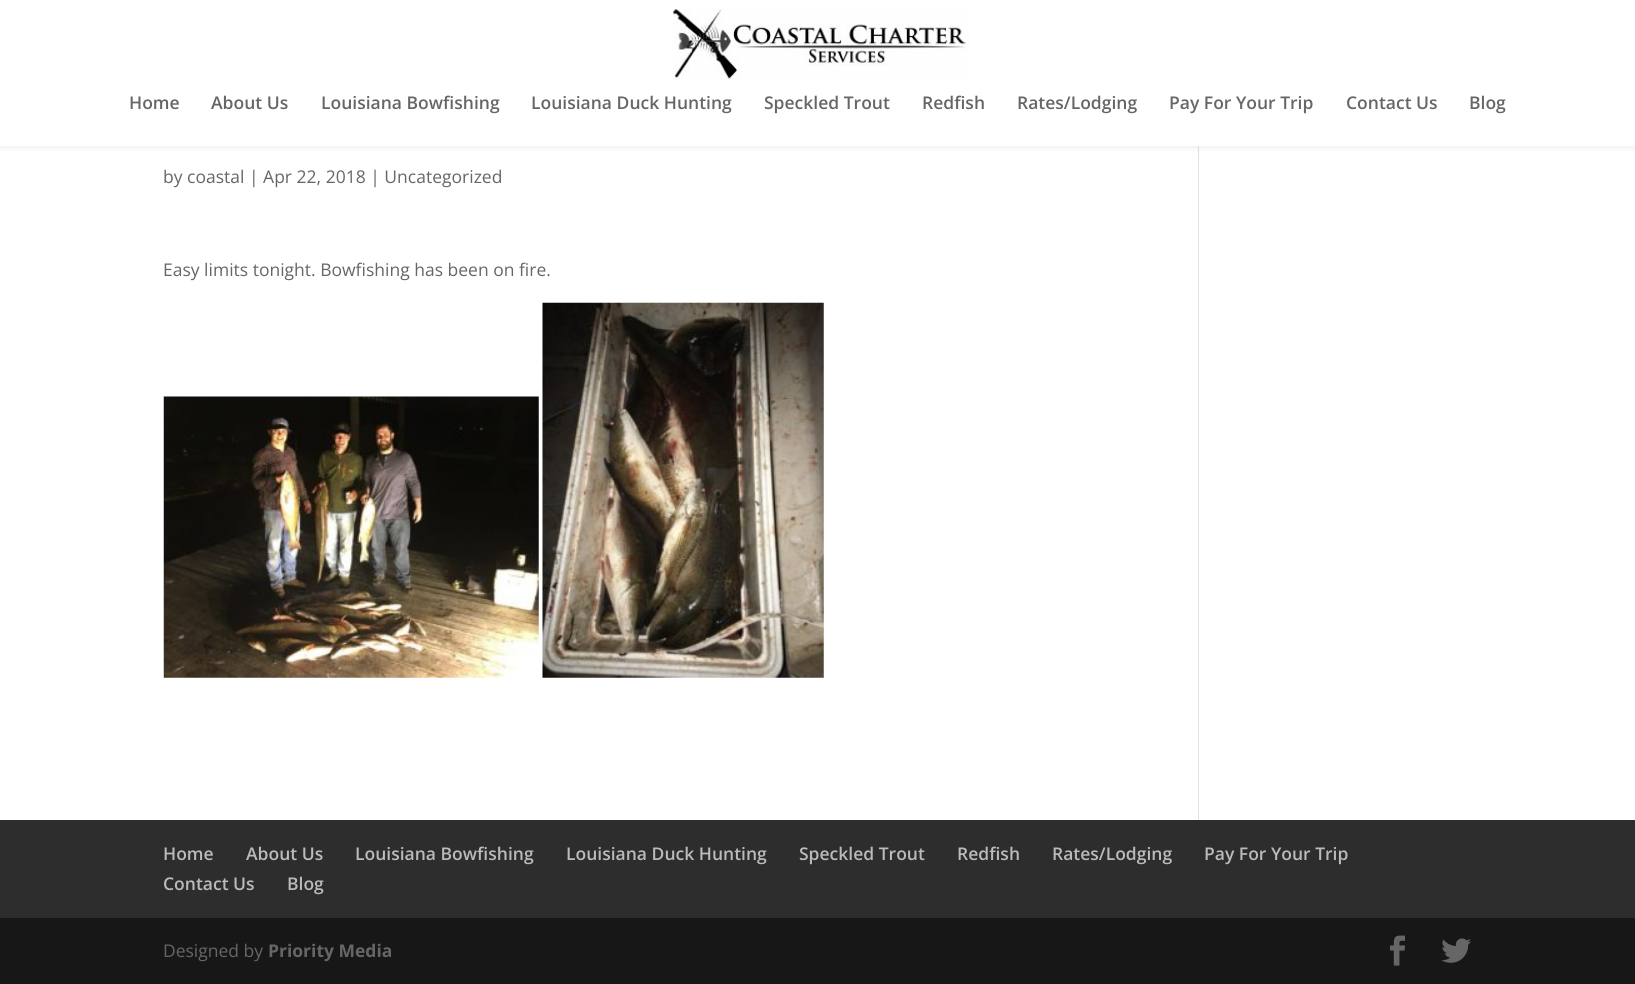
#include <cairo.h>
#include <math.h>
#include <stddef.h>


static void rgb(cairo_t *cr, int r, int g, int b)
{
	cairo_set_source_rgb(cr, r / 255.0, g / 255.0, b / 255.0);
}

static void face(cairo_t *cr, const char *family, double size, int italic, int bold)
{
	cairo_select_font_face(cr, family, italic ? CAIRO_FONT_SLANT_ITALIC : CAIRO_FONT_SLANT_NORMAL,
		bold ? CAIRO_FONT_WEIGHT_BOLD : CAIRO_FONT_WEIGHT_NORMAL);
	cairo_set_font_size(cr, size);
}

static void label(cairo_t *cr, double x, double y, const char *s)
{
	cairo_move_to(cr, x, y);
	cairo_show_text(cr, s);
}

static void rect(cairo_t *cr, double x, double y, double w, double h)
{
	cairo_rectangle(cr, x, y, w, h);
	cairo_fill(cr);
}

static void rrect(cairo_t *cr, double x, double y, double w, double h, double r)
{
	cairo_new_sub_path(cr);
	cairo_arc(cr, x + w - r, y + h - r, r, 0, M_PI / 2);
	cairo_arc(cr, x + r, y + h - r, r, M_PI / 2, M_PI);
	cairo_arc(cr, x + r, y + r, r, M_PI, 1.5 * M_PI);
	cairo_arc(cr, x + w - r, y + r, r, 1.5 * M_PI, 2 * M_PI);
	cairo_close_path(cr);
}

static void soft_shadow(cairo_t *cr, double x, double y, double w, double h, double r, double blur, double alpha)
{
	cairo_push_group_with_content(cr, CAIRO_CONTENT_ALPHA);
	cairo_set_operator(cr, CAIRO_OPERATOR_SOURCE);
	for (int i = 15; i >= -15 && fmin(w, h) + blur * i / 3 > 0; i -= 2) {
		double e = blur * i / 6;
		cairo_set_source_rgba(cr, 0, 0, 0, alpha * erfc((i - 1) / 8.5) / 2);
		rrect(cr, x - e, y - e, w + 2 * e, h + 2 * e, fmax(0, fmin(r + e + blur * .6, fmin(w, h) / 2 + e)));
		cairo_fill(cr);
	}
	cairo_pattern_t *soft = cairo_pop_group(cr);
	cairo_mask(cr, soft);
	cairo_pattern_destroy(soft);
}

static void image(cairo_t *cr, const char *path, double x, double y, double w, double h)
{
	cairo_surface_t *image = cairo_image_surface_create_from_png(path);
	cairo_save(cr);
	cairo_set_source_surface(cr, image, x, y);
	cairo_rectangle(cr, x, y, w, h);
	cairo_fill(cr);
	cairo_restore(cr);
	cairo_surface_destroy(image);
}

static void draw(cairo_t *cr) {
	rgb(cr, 255, 255, 255);
	cairo_paint(cr);
	rgb(cr, 226, 226, 226);
	rect(cr, 1198, 146, 1, 674);
	rgb(cr, 0, 0, 0);
	soft_shadow(cr, 0, 0, 1635, 146, 0, 4.5, 0.1);
	rgb(cr, 255, 255, 255);
	rect(cr, 0, 0, 1635, 146);
	image(cr, "image0.png", 673, 9, 296, 72);
	face(cr, "Open Sans SemiBold", 17.5, 0, 0);
	rgb(cr, 102, 102, 102);
	label(cr, 129, 109, "Home");
	label(cr, 211, 109, "About Us");
	label(cr, 321, 109, "Louisiana Bowfishing");
	label(cr, 531, 109, "Louisiana Duck Hunting");
	label(cr, 764, 109, "Speckled Trout");
	label(cr, 922, 109, "Redfish");
	label(cr, 1017, 109, "Rates/Lodging");
	label(cr, 1169, 109, "Pay For Your Trip");
	label(cr, 1346, 109, "Contact Us");
	label(cr, 1469, 109, "Blog");
	face(cr, "Open Sans", 17.5, 0, 0);
	label(cr, 163, 183, "by coastal | Apr 22, 2018 | Uncategorized");
	label(cr, 163, 276, "Easy limits tonight. Bowfishing has been on fire.");
	image(cr, "image1.png", 163, 396, 376, 282);
	image(cr, "image2.png", 542, 302, 282, 376);
	rgb(cr, 45, 45, 45);
	rect(cr, 0, 820, 1635, 98);
	face(cr, "Open Sans SemiBold", 17.5, 0, 0);
	rgb(cr, 187, 187, 187);
	label(cr, 163, 860, "Home");
	label(cr, 246, 860, "About Us");
	label(cr, 355, 860, "Louisiana Bowfishing");
	label(cr, 566, 860, "Louisiana Duck Hunting");
	label(cr, 799, 860, "Speckled Trout");
	label(cr, 957, 860, "Redfish");
	label(cr, 1052, 860, "Rates/Lodging");
	label(cr, 1204, 860, "Pay For Your Trip");
	label(cr, 163, 890, "Contact Us");
	label(cr, 287, 890, "Blog");
	rgb(cr, 23, 23, 23);
	rect(cr, 0, 918, 1635, 66);
	face(cr, "Open Sans", 17.5, 0, 0);
	rgb(cr, 102, 102, 102);
	label(cr, 163, 957, "Designed by");
	face(cr, "Open Sans", 17.5, 0, 1);
	label(cr, 268, 957, "Priority Media");
	image(cr, "image3.png", 1390, 935, 15, 31);
	image(cr, "image4.png", 1441, 938, 30, 25);
}

int main(void) {
	cairo_surface_t *surface = cairo_image_surface_create(CAIRO_FORMAT_RGB24, 1635, 984);
	cairo_t *cr = cairo_create(surface);
	cairo_font_options_t *options = cairo_font_options_create();
	cairo_font_options_set_hint_metrics(options, CAIRO_HINT_METRICS_OFF);
	cairo_font_options_set_hint_style(options, CAIRO_HINT_STYLE_NONE);
	cairo_set_font_options(cr, options);
	cairo_set_miter_limit(cr, 4);
	draw(cr);
	cairo_surface_write_to_png(surface, "render.png");
	cairo_font_options_destroy(options);
	cairo_destroy(cr);
	cairo_surface_destroy(surface);
	return 0;
}
